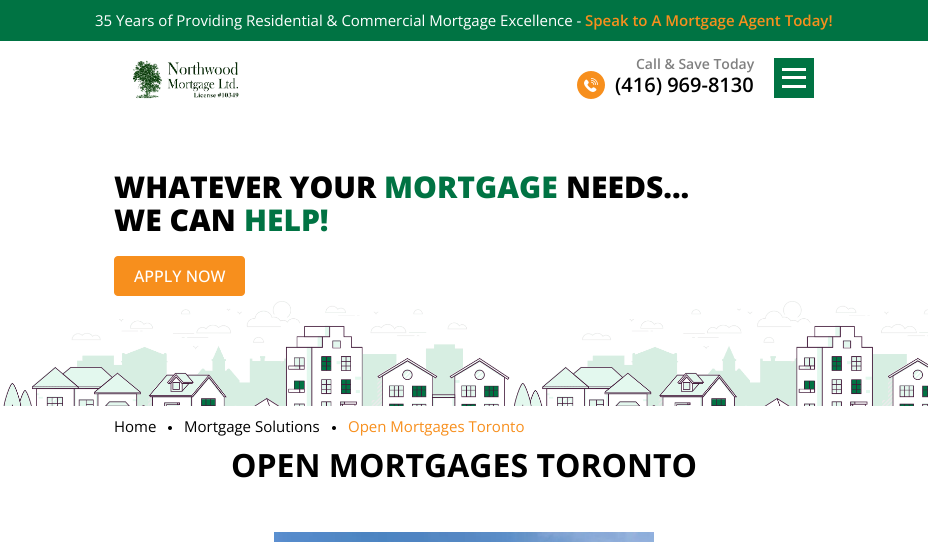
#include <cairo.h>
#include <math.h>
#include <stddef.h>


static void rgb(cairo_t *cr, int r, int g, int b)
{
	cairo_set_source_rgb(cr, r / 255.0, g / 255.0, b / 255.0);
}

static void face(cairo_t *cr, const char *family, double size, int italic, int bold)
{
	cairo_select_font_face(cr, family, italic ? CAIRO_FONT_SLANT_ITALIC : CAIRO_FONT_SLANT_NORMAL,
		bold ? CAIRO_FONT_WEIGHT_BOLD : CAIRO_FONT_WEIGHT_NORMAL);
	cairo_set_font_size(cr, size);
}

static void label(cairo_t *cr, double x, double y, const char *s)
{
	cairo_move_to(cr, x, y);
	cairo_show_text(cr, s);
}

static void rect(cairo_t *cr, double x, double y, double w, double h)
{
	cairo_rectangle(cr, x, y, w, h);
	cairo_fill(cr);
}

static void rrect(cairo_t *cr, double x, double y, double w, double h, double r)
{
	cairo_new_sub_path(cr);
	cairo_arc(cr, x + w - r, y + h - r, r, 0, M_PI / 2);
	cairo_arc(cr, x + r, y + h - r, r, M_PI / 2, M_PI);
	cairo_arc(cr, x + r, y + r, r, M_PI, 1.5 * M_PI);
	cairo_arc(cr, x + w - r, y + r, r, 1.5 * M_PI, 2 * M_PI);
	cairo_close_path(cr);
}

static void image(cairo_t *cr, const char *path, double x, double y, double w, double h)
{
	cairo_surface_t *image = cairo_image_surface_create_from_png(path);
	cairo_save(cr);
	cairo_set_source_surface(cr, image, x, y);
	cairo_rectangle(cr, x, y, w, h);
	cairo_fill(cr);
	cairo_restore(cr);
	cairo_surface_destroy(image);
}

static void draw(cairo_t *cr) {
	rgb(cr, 255, 255, 255);
	cairo_paint(cr);
	rgb(cr, 0, 115, 67);
	rect(cr, 0, 0, 928, 41);
	face(cr, "Open Sans", 15, 0, 0);
	rgb(cr, 255, 255, 255);
	label(cr, 95, 26, "35 Years of Providing Residential & Commercial Mortgage Excellence -");
	face(cr, "Open Sans SemiBold", 15, 0, 0);
	rgb(cr, 247, 143, 29);
	label(cr, 585, 26, "Speak to A Mortgage Agent Today!");
	image(cr, "image0.png", 132, 60, 107, 39);
	face(cr, "Open Sans SemiBold", 14, 0, 0);
	rgb(cr, 128, 128, 128);
	label(cr, 636, 69, "Call & Save Today");
	rgb(cr, 247, 143, 29);
	cairo_new_path(cr);
	cairo_arc(cr, 591, 85, 14, 0, 2 * M_PI);
	cairo_fill(cr);
	image(cr, "image1.png", 584, 78, 14, 14);
	face(cr, "Open Sans SemiBold", 20, 0, 0);
	rgb(cr, 0, 0, 0);
	label(cr, 615, 92, "(416) 969-8130");
	rgb(cr, 0, 115, 67);
	rect(cr, 774, 58, 40, 40);
	rgb(cr, 255, 255, 255);
	rect(cr, 782, 68, 24, 3);
	rect(cr, 782, 76, 24, 3);
	rect(cr, 782, 85, 24, 3);
	face(cr, "Open Sans ExtraBold", 30, 0, 0);
	rgb(cr, 0, 0, 0);
	label(cr, 114, 198, "WHATEVER YOUR");
	rgb(cr, 0, 115, 67);
	label(cr, 384, 198, "MORTGAGE");
	rgb(cr, 0, 0, 0);
	label(cr, 566, 198, "NEEDS...");
	label(cr, 114, 231, "WE CAN");
	rgb(cr, 0, 115, 67);
	label(cr, 244, 231, "HELP!");
	rgb(cr, 247, 143, 29);
	rrect(cr, 114, 256, 131, 40, 4);
	cairo_fill(cr);
	face(cr, "Open Sans Medium", 16, 0, 0);
	rgb(cr, 255, 255, 255);
	label(cr, 134, 282, "APPLY NOW");
	image(cr, "image2.png", 3, 301, 925, 105);
	face(cr, "Open Sans", 15, 0, 0);
	rgb(cr, 0, 0, 0);
	label(cr, 114, 432, "Home");
	cairo_new_path(cr);
	cairo_arc(cr, 170, 428, 2, 0, 2 * M_PI);
	cairo_fill(cr);
	label(cr, 184, 432, "Mortgage Solutions");
	cairo_new_path(cr);
	cairo_arc(cr, 334, 428, 2, 0, 2 * M_PI);
	cairo_fill(cr);
	rgb(cr, 247, 143, 29);
	label(cr, 348, 432, "Open Mortgages Toronto");
	face(cr, "Open Sans", 32, 0, 1);
	rgb(cr, 0, 0, 0);
	label(cr, 231, 477, "OPEN MORTGAGES TORONTO");
	image(cr, "image3.png", 274, 532, 380, 10);
}

int main(void) {
	cairo_surface_t *surface = cairo_image_surface_create(CAIRO_FORMAT_RGB24, 928, 542);
	cairo_t *cr = cairo_create(surface);
	cairo_font_options_t *options = cairo_font_options_create();
	cairo_font_options_set_hint_metrics(options, CAIRO_HINT_METRICS_OFF);
	cairo_font_options_set_hint_style(options, CAIRO_HINT_STYLE_NONE);
	cairo_set_font_options(cr, options);
	cairo_set_miter_limit(cr, 4);
	draw(cr);
	cairo_surface_write_to_png(surface, "render.png");
	cairo_font_options_destroy(options);
	cairo_destroy(cr);
	cairo_surface_destroy(surface);
	return 0;
}
